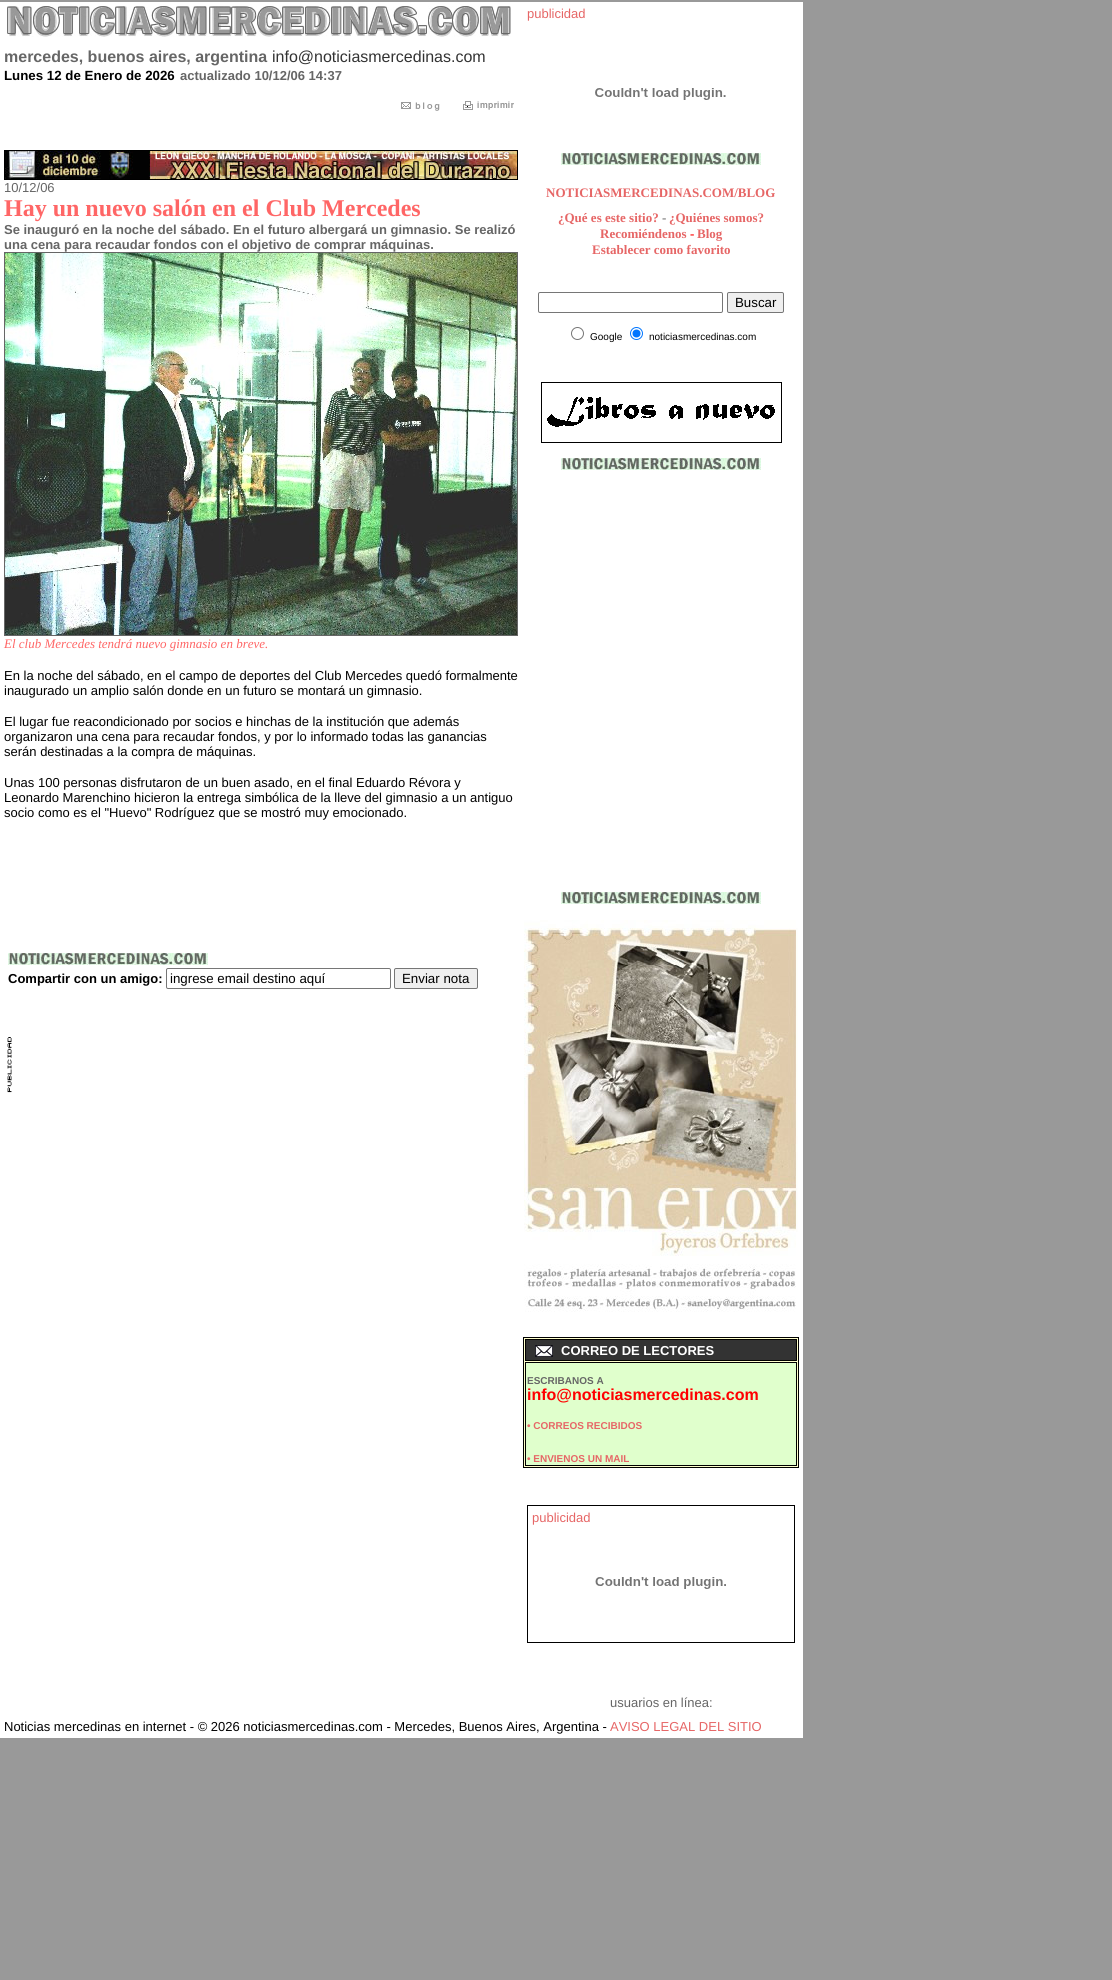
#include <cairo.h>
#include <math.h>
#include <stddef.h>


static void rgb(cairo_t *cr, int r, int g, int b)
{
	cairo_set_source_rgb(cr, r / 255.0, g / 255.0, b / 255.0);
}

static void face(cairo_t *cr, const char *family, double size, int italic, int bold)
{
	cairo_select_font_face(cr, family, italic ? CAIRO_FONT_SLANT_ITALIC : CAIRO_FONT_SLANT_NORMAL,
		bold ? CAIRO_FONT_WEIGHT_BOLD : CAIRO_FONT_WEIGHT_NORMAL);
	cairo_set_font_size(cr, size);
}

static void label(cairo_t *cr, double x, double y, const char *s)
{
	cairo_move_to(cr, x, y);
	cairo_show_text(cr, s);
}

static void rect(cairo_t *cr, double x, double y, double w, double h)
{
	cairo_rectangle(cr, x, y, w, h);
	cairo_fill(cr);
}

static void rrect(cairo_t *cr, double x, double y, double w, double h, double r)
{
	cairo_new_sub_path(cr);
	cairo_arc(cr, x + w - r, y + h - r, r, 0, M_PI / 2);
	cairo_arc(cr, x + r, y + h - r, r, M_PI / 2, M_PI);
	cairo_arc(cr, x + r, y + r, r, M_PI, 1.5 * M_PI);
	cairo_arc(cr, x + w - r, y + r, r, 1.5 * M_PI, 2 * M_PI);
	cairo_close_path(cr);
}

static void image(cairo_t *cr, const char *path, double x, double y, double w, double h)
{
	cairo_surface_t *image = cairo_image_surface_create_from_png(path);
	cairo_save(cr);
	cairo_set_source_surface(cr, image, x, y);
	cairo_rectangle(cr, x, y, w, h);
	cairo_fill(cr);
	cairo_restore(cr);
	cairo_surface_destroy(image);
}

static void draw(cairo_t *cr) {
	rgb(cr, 153, 153, 153);
	cairo_paint(cr);
	rgb(cr, 255, 255, 255);
	rect(cr, 0, 2, 803, 1736);
	face(cr, "Liberation Sans", 13, 0, 0);
	rgb(cr, 230, 102, 102);
	label(cr, 527, 18, "publicidad");
	image(cr, "image0.png", 595, 88, 131, 12);
	image(cr, "image1.png", 7, 6, 504, 31);
	face(cr, "Liberation Sans", 16, 0, 1);
	rgb(cr, 102, 102, 102);
	label(cr, 4, 62, "mercedes, buenos aires, argentina");
	face(cr, "Liberation Sans", 16, 0, 0);
	rgb(cr, 51, 51, 51);
	label(cr, 272, 62, "info@noticiasmercedinas.com");
	face(cr, "Liberation Sans", 13.3, 0, 1);
	rgb(cr, 0, 0, 0);
	label(cr, 4, 80, "Lunes 12 de Enero de 2026");
	face(cr, "Liberation Sans", 13, 0, 1);
	rgb(cr, 102, 102, 102);
	label(cr, 180, 80, "actualizado 10/12/06 14:37");
	image(cr, "image2.png", 401, 102, 39, 9);
	image(cr, "image3.png", 463, 101, 51, 9);
	cairo_rectangle(cr, 4.5, 150.5, 513, 29);
	rgb(cr, 0, 0, 0);
	cairo_set_line_width(cr, 1);
	cairo_stroke(cr);
	image(cr, "image4.png", 5, 151, 512, 28);
	face(cr, "Liberation Sans", 13, 0, 0);
	rgb(cr, 102, 102, 102);
	label(cr, 4, 192, "10/12/06");
	face(cr, "Liberation Serif", 24, 0, 1);
	rgb(cr, 255, 102, 102);
	label(cr, 4, 216, "Hay un nuevo salón en el Club Mercedes");
	face(cr, "Liberation Sans", 13, 0, 1);
	rgb(cr, 102, 102, 102);
	label(cr, 4, 234, "Se inauguró en la noche del sábado. En el futuro albergará un gimnasio. Se realizó");
	label(cr, 4, 249, "una cena para recaudar fondos con el objetivo de comprar máquinas.");
	cairo_rectangle(cr, 4.5, 252.5, 513, 383);
	cairo_stroke(cr);
	image(cr, "image5.png", 5, 253, 512, 382);
	face(cr, "Liberation Serif", 13, 1, 0);
	rgb(cr, 255, 102, 102);
	label(cr, 4, 648, "El club Mercedes tendrá nuevo gimnasio en breve.");
	face(cr, "Liberation Sans", 13, 0, 0);
	rgb(cr, 0, 0, 0);
	label(cr, 4, 680, "En la noche del sábado, en el campo de deportes del Club Mercedes quedó formalmente");
	label(cr, 4, 695, "inaugurado un amplio salón donde en un futuro se montará un gimnasio.");
	label(cr, 4, 726, "El lugar fue reacondicionado por socios e hinchas de la institución que además");
	label(cr, 4, 741, "organizaron una cena para recaudar fondos, y por lo informado todas las ganancias");
	label(cr, 4, 756, "serán destinadas a la compra de máquinas.");
	label(cr, 4, 787, "Unas 100 personas disfrutaron de un buen asado, en el final Eduardo Révora y");
	label(cr, 4, 802, "Leonardo Marenchino hicieron la entrega simbólica de la lleve del gimnasio a un antiguo");
	label(cr, 4, 817, "socio como es el \"Huevo\" Rodríguez que se mostró muy emocionado.");
	image(cr, "image6.png", 8, 953, 200, 12);
	face(cr, "Liberation Sans", 13, 0, 1);
	label(cr, 8, 983, "Compartir con un amigo:");
	rrect(cr, 166.5, 968.5, 224, 20, 1.5);
	rgb(cr, 118, 118, 118);
	cairo_stroke(cr);
	face(cr, "Liberation Sans", 13.3, 0, 0);
	rgb(cr, 0, 0, 0);
	label(cr, 170, 983, "ingrese email destino aquí");
	rgb(cr, 239, 239, 239);
	rrect(cr, 394.5, 968.5, 83, 20, 1.5);
	cairo_fill_preserve(cr);
	rgb(cr, 118, 118, 118);
	cairo_stroke(cr);
	rgb(cr, 0, 0, 0);
	label(cr, 402, 983, "Enviar nota");
	image(cr, "image7.png", 7, 1037, 5, 56);
	image(cr, "image6.png", 561, 153, 200, 12);
	face(cr, "Liberation Serif", 13, 0, 1);
	rgb(cr, 230, 102, 102);
	label(cr, 546, 197, "NOTICIASMERCEDINAS.COM/BLOG");
	label(cr, 558, 222, "¿Qué es este sitio?");
	face(cr, "Liberation Serif", 13, 0, 0);
	rgb(cr, 102, 102, 102);
	label(cr, 662, 222, "-");
	face(cr, "Liberation Serif", 13, 0, 1);
	rgb(cr, 230, 102, 102);
	label(cr, 669, 222, "¿Quiénes somos?");
	label(cr, 600, 238, "Recomiéndenos");
	rgb(cr, 255, 0, 0);
	label(cr, 690, 238, "-");
	rgb(cr, 230, 102, 102);
	label(cr, 697, 238, "Blog");
	label(cr, 592, 254, "Establecer como favorito");
	rrect(cr, 538.5, 292.5, 184, 20, 1.5);
	rgb(cr, 118, 118, 118);
	cairo_stroke(cr);
	rgb(cr, 239, 239, 239);
	rrect(cr, 727.5, 292.5, 56, 20, 1.5);
	cairo_fill_preserve(cr);
	rgb(cr, 118, 118, 118);
	cairo_stroke(cr);
	face(cr, "Liberation Sans", 13.3, 0, 0);
	rgb(cr, 0, 0, 0);
	label(cr, 735, 307, "Buscar");
	cairo_new_path(cr);
	cairo_arc(cr, 577.5, 333.5, 6, 0, 2 * M_PI);
	rgb(cr, 118, 118, 118);
	cairo_stroke(cr);
	face(cr, "Liberation Sans", 10, 0, 0);
	rgb(cr, 0, 0, 0);
	label(cr, 590, 340, "Google");
	cairo_new_path(cr);
	cairo_arc(cr, 636.5, 333.5, 6, 0, 2 * M_PI);
	rgb(cr, 0, 117, 255);
	cairo_stroke(cr);
	cairo_arc(cr, 636.5, 333.5, 4, 0, 2 * M_PI);
	cairo_fill(cr);
	rgb(cr, 0, 0, 0);
	label(cr, 649, 340, "noticiasmercedinas.com");
	image(cr, "image8.png", 541, 382, 241, 61);
	image(cr, "image6.png", 561, 458, 200, 12);
	image(cr, "image6.png", 561, 892, 200, 12);
	image(cr, "image9.png", 524, 920, 274, 392);
	rgb(cr, 255, 255, 204);
	cairo_rectangle(cr, 523.5, 1337.5, 275, 130);
	cairo_fill_preserve(cr);
	rgb(cr, 0, 0, 0);
	cairo_stroke(cr);
	rgb(cr, 51, 51, 51);
	cairo_rectangle(cr, 525.5, 1339.5, 271, 21);
	cairo_fill_preserve(cr);
	rgb(cr, 0, 0, 0);
	cairo_stroke(cr);
	image(cr, "image10.png", 535, 1345, 18, 12);
	face(cr, "Liberation Sans", 13, 0, 1);
	rgb(cr, 255, 255, 255);
	label(cr, 561, 1355, "CORREO DE LECTORES");
	rgb(cr, 224, 255, 204);
	cairo_rectangle(cr, 525.5, 1362.5, 271, 103);
	cairo_fill_preserve(cr);
	rgb(cr, 0, 0, 0);
	cairo_stroke(cr);
	face(cr, "Liberation Sans", 10, 0, 1);
	rgb(cr, 102, 102, 102);
	label(cr, 527, 1384, "ESCRIBANOS A");
	face(cr, "Liberation Sans", 16, 0, 1);
	rgb(cr, 255, 0, 0);
	label(cr, 527, 1400, "info@noticiasmercedinas.com");
	face(cr, "Liberation Sans", 10, 0, 1);
	rgb(cr, 230, 102, 102);
	label(cr, 527, 1429, "• CORREOS RECIBIDOS");
	label(cr, 527, 1462, "• ENVIENOS UN MAIL");
	rgb(cr, 0, 0, 0);
	rect(cr, 527, 1505, 268, 138);
	rgb(cr, 255, 255, 255);
	rect(cr, 528, 1506, 266, 136);
	face(cr, "Liberation Sans", 13, 0, 0);
	rgb(cr, 230, 102, 102);
	label(cr, 532, 1522, "publicidad");
	image(cr, "image11.png", 595, 1577, 131, 12);
	rgb(cr, 102, 102, 102);
	label(cr, 610, 1707, "usuarios en línea:");
	rgb(cr, 0, 0, 0);
	label(cr, 4, 1731, "Noticias mercedinas en internet - © 2026 noticiasmercedinas.com - Mercedes, Buenos Aires, Argentina -");
	rgb(cr, 230, 102, 102);
	label(cr, 610, 1731, "AVISO LEGAL DEL SITIO");
}

int main(void) {
	cairo_surface_t *surface = cairo_image_surface_create(CAIRO_FORMAT_RGB24, 1112, 1980);
	cairo_t *cr = cairo_create(surface);
	cairo_font_options_t *options = cairo_font_options_create();
	cairo_font_options_set_hint_metrics(options, CAIRO_HINT_METRICS_OFF);
	cairo_font_options_set_hint_style(options, CAIRO_HINT_STYLE_NONE);
	cairo_set_font_options(cr, options);
	cairo_set_miter_limit(cr, 4);
	draw(cr);
	cairo_surface_write_to_png(surface, "render.png");
	cairo_font_options_destroy(options);
	cairo_destroy(cr);
	cairo_surface_destroy(surface);
	return 0;
}
